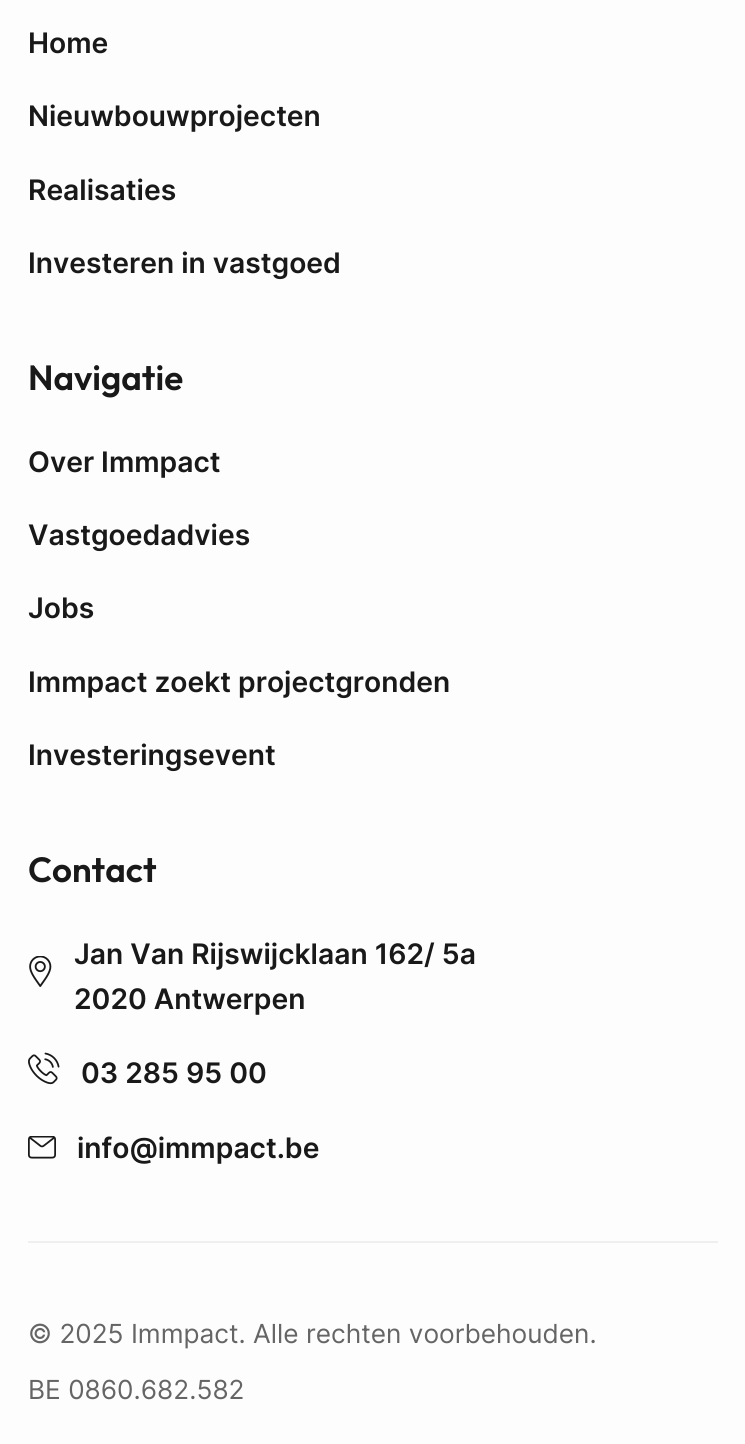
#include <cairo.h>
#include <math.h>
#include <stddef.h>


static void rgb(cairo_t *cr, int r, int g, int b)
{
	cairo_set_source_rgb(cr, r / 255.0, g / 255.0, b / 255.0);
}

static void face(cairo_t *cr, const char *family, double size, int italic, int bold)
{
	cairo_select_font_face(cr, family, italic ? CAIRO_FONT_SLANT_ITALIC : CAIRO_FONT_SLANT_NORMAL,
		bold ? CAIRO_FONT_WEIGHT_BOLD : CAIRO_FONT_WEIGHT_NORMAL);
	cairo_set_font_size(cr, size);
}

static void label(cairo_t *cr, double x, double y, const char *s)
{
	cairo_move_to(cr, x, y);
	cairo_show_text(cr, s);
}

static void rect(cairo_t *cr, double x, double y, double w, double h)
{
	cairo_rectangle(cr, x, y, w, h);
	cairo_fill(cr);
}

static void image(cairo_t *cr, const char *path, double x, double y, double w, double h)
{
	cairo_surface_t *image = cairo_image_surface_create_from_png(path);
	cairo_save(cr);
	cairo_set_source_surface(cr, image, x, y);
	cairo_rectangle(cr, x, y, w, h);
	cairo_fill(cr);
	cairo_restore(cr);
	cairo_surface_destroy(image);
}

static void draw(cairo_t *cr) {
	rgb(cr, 253, 253, 253);
	cairo_paint(cr);
	face(cr, "Inter SemiBold", 28.25, 0, 0);
	rgb(cr, 25, 25, 25);
	label(cr, 28, 53, "Home");
	label(cr, 28, 126, "Nieuwbouwprojecten");
	label(cr, 28, 200, "Realisaties");
	label(cr, 28, 273, "Investeren in vastgoed");
	face(cr, "Outfit SemiBold", 35, 0, 0);
	label(cr, 28, 390, "Navigatie");
	face(cr, "Inter SemiBold", 28.25, 0, 0);
	label(cr, 28, 472, "Over Immpact");
	label(cr, 28, 545, "Vastgoedadvies");
	label(cr, 28, 618, "Jobs");
	label(cr, 28, 692, "Immpact zoekt projectgronden");
	label(cr, 28, 765, "Investeringsevent");
	face(cr, "Outfit SemiBold", 35, 0, 0);
	label(cr, 28, 882, "Contact");
	image(cr, "image0.png", 29, 956, 23, 31);
	face(cr, "Inter SemiBold", 28.25, 0, 0);
	label(cr, 74, 964, "Jan Van Rijswijcklaan 162/ 5a");
	label(cr, 74, 1009, "2020 Antwerpen");
	image(cr, "image1.png", 28, 1052, 32, 33);
	label(cr, 81, 1083, "03 285 95 00");
	image(cr, "image2.png", 28, 1136, 28, 23);
	label(cr, 77, 1158, "info@immpact.be");
	rgb(cr, 239, 239, 239);
	rect(cr, 28, 1241, 690, 2);
	face(cr, "Inter", 26.25, 0, 0);
	rgb(cr, 101, 101, 101);
	label(cr, 28, 1343, "© 2025 Immpact. Alle rechten voorbehouden.");
	label(cr, 28, 1399, "BE 0860.682.582");
}

int main(void) {
	cairo_surface_t *surface = cairo_image_surface_create(CAIRO_FORMAT_RGB24, 745, 1444);
	cairo_t *cr = cairo_create(surface);
	cairo_font_options_t *options = cairo_font_options_create();
	cairo_font_options_set_hint_metrics(options, CAIRO_HINT_METRICS_OFF);
	cairo_font_options_set_hint_style(options, CAIRO_HINT_STYLE_NONE);
	cairo_set_font_options(cr, options);
	cairo_set_miter_limit(cr, 4);
	draw(cr);
	cairo_surface_write_to_png(surface, "render.png");
	cairo_font_options_destroy(options);
	cairo_destroy(cr);
	cairo_surface_destroy(surface);
	return 0;
}
